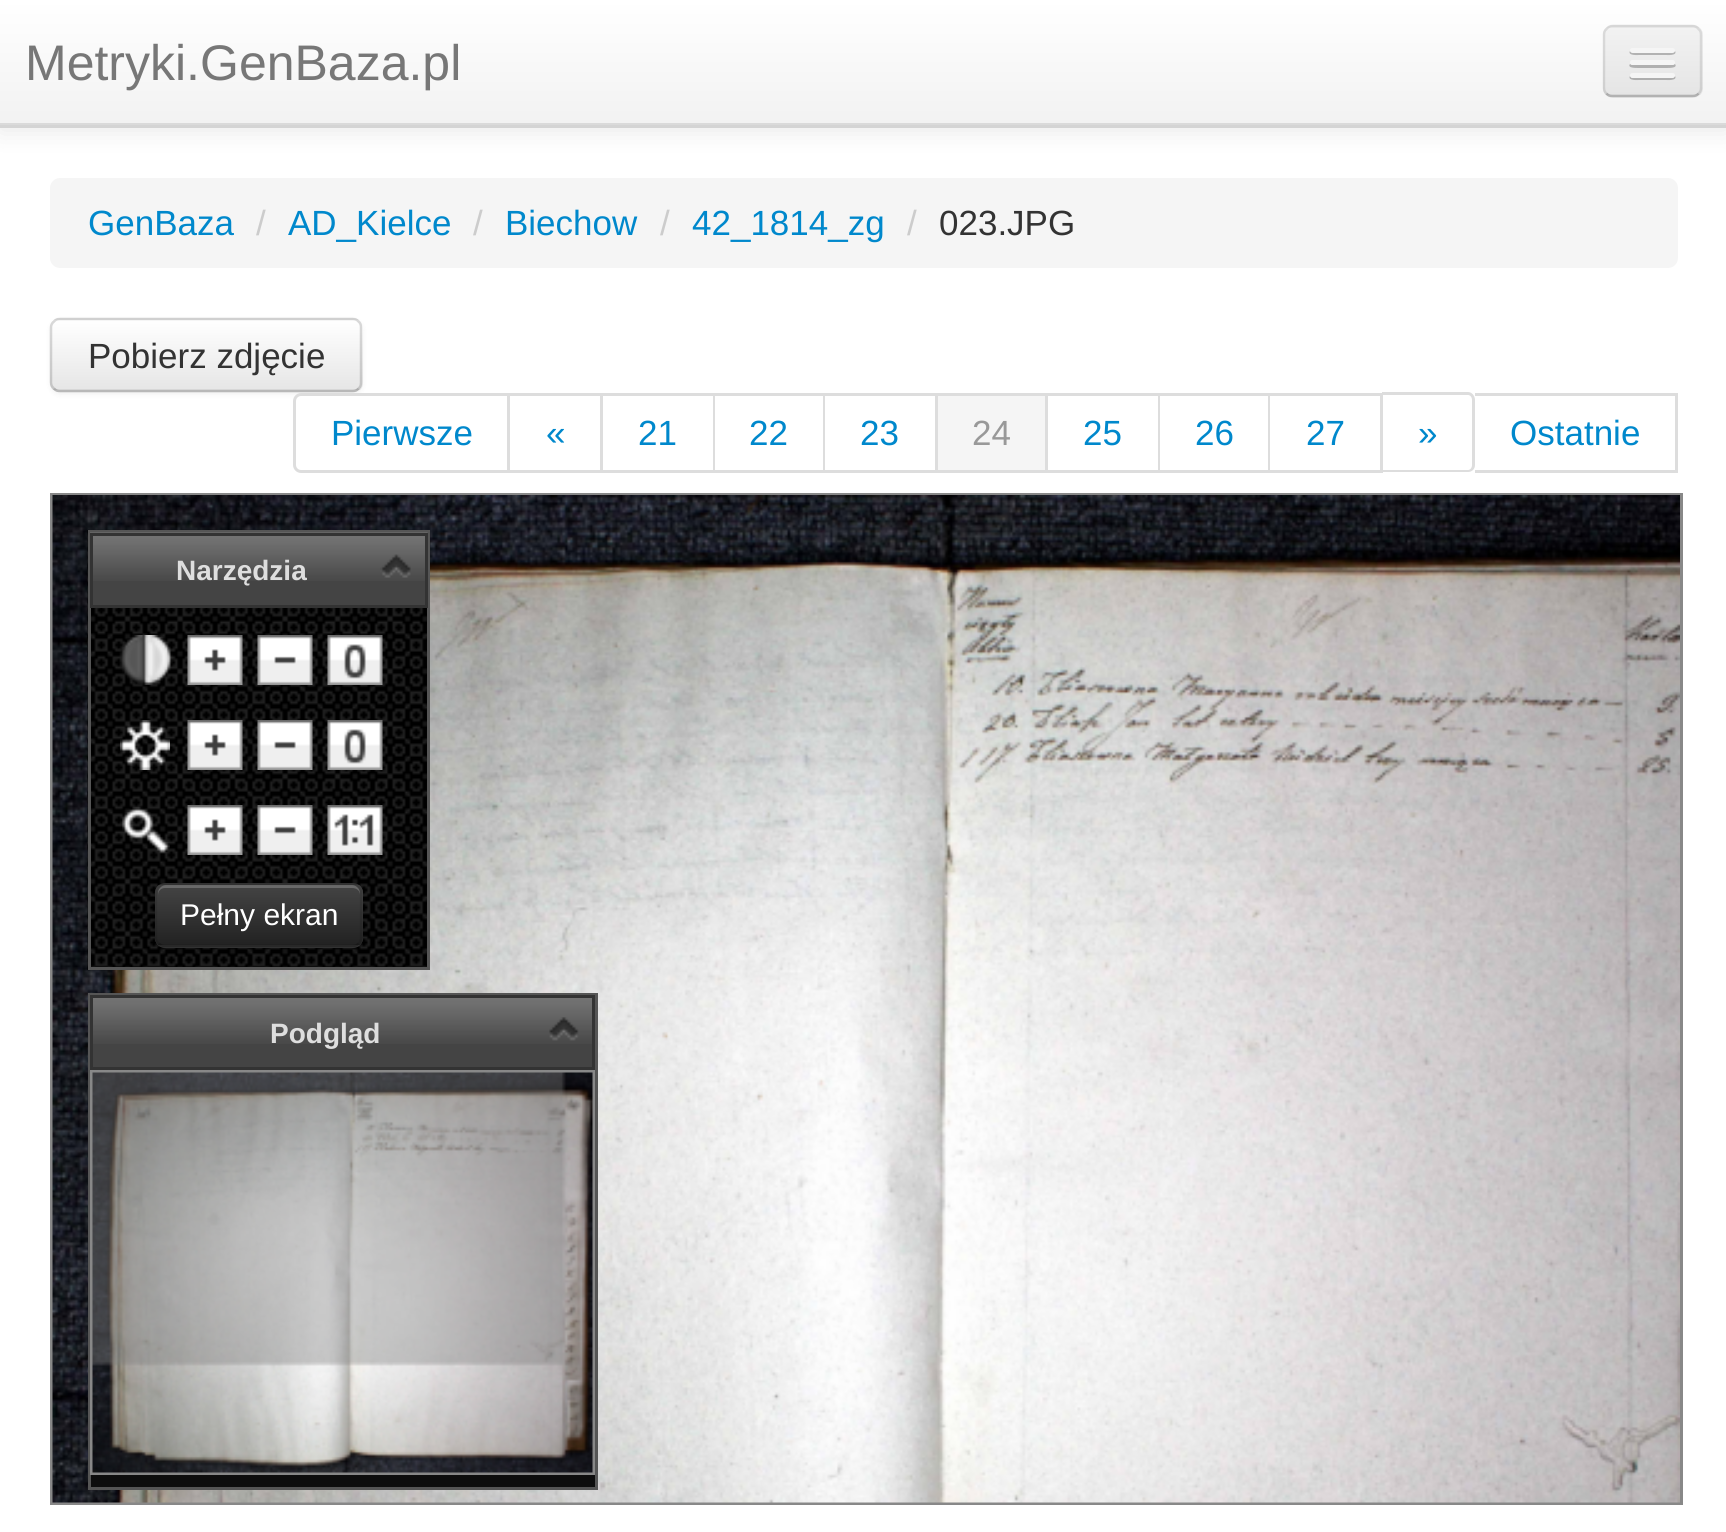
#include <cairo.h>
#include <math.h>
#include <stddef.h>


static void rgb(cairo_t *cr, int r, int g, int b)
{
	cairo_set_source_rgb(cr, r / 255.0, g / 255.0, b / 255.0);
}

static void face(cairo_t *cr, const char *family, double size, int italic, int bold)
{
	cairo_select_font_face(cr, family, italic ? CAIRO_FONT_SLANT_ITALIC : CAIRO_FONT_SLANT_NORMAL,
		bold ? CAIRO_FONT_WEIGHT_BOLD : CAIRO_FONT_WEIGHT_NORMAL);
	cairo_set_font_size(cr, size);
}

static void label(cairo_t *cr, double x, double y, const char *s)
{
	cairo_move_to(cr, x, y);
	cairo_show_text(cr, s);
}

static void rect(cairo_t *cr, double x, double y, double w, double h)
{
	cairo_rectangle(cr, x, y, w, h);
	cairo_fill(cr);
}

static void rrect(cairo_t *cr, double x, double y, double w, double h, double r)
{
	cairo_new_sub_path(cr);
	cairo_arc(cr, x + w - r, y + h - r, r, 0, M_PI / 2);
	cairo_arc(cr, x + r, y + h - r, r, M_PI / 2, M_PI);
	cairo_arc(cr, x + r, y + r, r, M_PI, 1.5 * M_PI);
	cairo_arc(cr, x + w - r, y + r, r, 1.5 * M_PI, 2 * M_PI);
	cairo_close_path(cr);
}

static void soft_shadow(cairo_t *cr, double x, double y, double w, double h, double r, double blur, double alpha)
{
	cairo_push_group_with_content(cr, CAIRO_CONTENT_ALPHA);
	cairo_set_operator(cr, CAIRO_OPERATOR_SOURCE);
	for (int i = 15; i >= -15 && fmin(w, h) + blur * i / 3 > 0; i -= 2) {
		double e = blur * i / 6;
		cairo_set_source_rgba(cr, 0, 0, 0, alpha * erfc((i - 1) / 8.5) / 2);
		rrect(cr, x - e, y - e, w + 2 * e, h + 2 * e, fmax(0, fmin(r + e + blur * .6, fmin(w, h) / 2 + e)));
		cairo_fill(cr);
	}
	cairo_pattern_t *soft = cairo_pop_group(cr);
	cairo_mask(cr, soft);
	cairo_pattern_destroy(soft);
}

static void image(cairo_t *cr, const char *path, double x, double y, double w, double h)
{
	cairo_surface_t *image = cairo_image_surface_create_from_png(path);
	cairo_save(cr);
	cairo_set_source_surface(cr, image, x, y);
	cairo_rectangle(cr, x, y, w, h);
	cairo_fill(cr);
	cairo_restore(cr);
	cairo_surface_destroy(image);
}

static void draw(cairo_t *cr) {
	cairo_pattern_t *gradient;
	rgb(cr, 255, 255, 255);
	cairo_paint(cr);
	rgb(cr, 0, 0, 0);
	soft_shadow(cr, 0, 3, 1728, 127, 0, 12.5, 0.1);
	gradient = cairo_pattern_create_linear(864, 0, 864, 125);
	cairo_pattern_add_color_stop_rgba(gradient, 0, 1, 1, 1, 1);
	cairo_pattern_add_color_stop_rgba(gradient, 1, 0.949, 0.949, 0.949, 1);
	cairo_set_source(cr, gradient);
	cairo_pattern_destroy(gradient);
	rect(cr, 0, 0, 1726, 123);
	gradient = cairo_pattern_create_linear(864, 0, 864, 125);
	cairo_pattern_add_color_stop_rgba(gradient, 0, 0.902, 0.902, 0.902, 1);
	cairo_pattern_add_color_stop_rgba(gradient, 1, 0.855, 0.855, 0.855, 1);
	cairo_set_source(cr, gradient);
	cairo_pattern_destroy(gradient);
	rect(cr, 0, 123, 1726, 2);
	rgb(cr, 212, 212, 212);
	rect(cr, 0, 125, 1726, 3);
	face(cr, "Liberation Sans", 50, 0, 0);
	rgb(cr, 119, 119, 119);
	label(cr, 25, 80, "Metryki.GenBaza.pl");
	rgb(cr, 237, 237, 237);
	rrect(cr, 1603, 25, 100, 73, 10);
	cairo_fill(cr);
	cairo_save(cr);
	rrect(cr, 1603, 25, 100, 73, 10);
	cairo_clip(cr);
	gradient = cairo_pattern_create_linear(1653, 27, 1653, 95);
	cairo_pattern_add_color_stop_rgba(gradient, 0, 0.949, 0.949, 0.949, 1);
	cairo_pattern_add_color_stop_rgba(gradient, 1, 0.898, 0.898, 0.898, 1);
	cairo_set_source(cr, gradient);
	cairo_pattern_destroy(gradient);
	rect(cr, 1603, 28, 100, 67);
	cairo_restore(cr);
	cairo_new_path(cr);
	cairo_move_to(cr, 1698.5, 93.5);
	cairo_curve_to(cr, 1697, 95.5, 1695, 96, 1692.5, 96);
	cairo_line_to(cr, 1612.5, 96);
	cairo_curve_to(cr, 1610, 96, 1608, 95.5, 1606.5, 93.5);
	cairo_set_source_rgba(cr, 0, 0, 0, 0.25);
	cairo_set_line_width(cr, 2.5);
	cairo_stroke(cr);
	cairo_new_path(cr);
	cairo_move_to(cr, 1606.5, 93.5);
	cairo_curve_to(cr, 1604.5, 92, 1604, 90, 1604, 87.5);
	cairo_line_to(cr, 1604, 35);
	cairo_curve_to(cr, 1604, 32.5, 1604.5, 30.5, 1606.5, 29);
	cairo_curve_to(cr, 1608, 27, 1610, 26, 1612.5, 26);
	cairo_line_to(cr, 1692.5, 26);
	cairo_curve_to(cr, 1695, 26, 1697, 27, 1698.5, 29);
	cairo_curve_to(cr, 1700.5, 30.5, 1701, 32.5, 1701, 35);
	cairo_line_to(cr, 1701, 87.5);
	cairo_curve_to(cr, 1701, 90, 1700.5, 92, 1698.5, 93.5);
	cairo_set_source_rgba(cr, 0, 0, 0, 0.1);
	cairo_stroke(cr);
	rgb(cr, 178, 178, 178);
	cairo_new_path(cr);
	cairo_move_to(cr, 1630, 51);
	cairo_curve_to(cr, 1627, 56, 1639, 55, 1639, 55);
	cairo_line_to(cr, 1666, 55);
	cairo_curve_to(cr, 1666, 55, 1678, 56, 1675, 51);
	cairo_curve_to(cr, 1674, 52, 1673, 52, 1672, 52);
	cairo_line_to(cr, 1632, 52);
	cairo_curve_to(cr, 1632, 52, 1631, 52, 1630, 51);
	cairo_close_path(cr);
	cairo_fill(cr);
	rgb(cr, 245, 245, 245);
	rrect(cr, 1630, 48, 45, 5, 2.5);
	cairo_fill(cr);
	rgb(cr, 176, 176, 176);
	cairo_new_path(cr);
	cairo_move_to(cr, 1630, 64);
	cairo_curve_to(cr, 1627, 68, 1635, 68, 1639, 68);
	cairo_line_to(cr, 1666, 68);
	cairo_curve_to(cr, 1670, 68, 1678, 68, 1675, 64);
	cairo_line_to(cr, 1673, 65);
	cairo_line_to(cr, 1632, 65);
	cairo_close_path(cr);
	cairo_fill(cr);
	rgb(cr, 245, 245, 245);
	rrect(cr, 1630, 60, 45, 5, 2.5);
	cairo_fill(cr);
	rgb(cr, 174, 174, 174);
	cairo_new_path(cr);
	cairo_move_to(cr, 1630, 76);
	cairo_curve_to(cr, 1627, 81, 1639, 80, 1639, 80);
	cairo_line_to(cr, 1666, 80);
	cairo_curve_to(cr, 1666, 80, 1678, 81, 1675, 76);
	cairo_curve_to(cr, 1674, 77, 1673, 78, 1672, 78);
	cairo_line_to(cr, 1632, 78);
	cairo_curve_to(cr, 1632, 78, 1631, 77, 1630, 76);
	cairo_close_path(cr);
	cairo_fill(cr);
	rgb(cr, 245, 245, 245);
	rrect(cr, 1630, 73, 45, 5, 2.5);
	cairo_fill(cr);
	rrect(cr, 50, 178, 1628, 90, 10);
	cairo_fill(cr);
	face(cr, "Liberation Sans", 35, 0, 0);
	rgb(cr, 0, 136, 204);
	label(cr, 88, 235, "GenBaza");
	rgb(cr, 204, 204, 204);
	label(cr, 256, 235, "/");
	rgb(cr, 0, 136, 204);
	label(cr, 288, 235, "AD_Kielce");
	rgb(cr, 204, 204, 204);
	label(cr, 473, 235, "/");
	rgb(cr, 0, 136, 204);
	label(cr, 505, 235, "Biechow");
	rgb(cr, 204, 204, 204);
	label(cr, 660, 235, "/");
	rgb(cr, 0, 136, 204);
	label(cr, 692, 235, "42_1814_zg");
	rgb(cr, 204, 204, 204);
	label(cr, 907, 235, "/");
	rgb(cr, 51, 51, 51);
	label(cr, 939, 235, "023.JPG");
	rgb(cr, 0, 0, 0);
	soft_shadow(cr, 50, 320, 313, 75, 10, 2.5, 0.05);
	rgb(cr, 245, 245, 245);
	rrect(cr, 50, 318, 313, 75, 10);
	cairo_fill(cr);
	cairo_save(cr);
	rrect(cr, 50, 318, 313, 75, 10);
	cairo_clip(cr);
	gradient = cairo_pattern_create_linear(206, 320, 206, 390);
	cairo_pattern_add_color_stop_rgba(gradient, 0, 1, 1, 1, 1);
	cairo_pattern_add_color_stop_rgba(gradient, 1, 0.902, 0.902, 0.902, 1);
	cairo_set_source(cr, gradient);
	cairo_pattern_destroy(gradient);
	rect(cr, 50, 320, 313, 70);
	cairo_restore(cr);
	cairo_new_path(cr);
	cairo_move_to(cr, 358.5, 388.5);
	cairo_curve_to(cr, 357, 390.5, 355, 391, 352.5, 391);
	cairo_line_to(cr, 60, 391);
	cairo_curve_to(cr, 57.5, 391, 55.5, 390.5, 54, 388.5);
	cairo_set_source_rgba(cr, 0, 0, 0, 0.25);
	cairo_stroke(cr);
	cairo_new_path(cr);
	cairo_move_to(cr, 54, 388.5);
	cairo_curve_to(cr, 52, 387, 51, 385, 51, 382.5);
	cairo_line_to(cr, 51, 327.5);
	cairo_curve_to(cr, 51, 325, 52, 323, 54, 321.5);
	cairo_curve_to(cr, 55.5, 319.5, 57.5, 319, 60, 319);
	cairo_line_to(cr, 352.5, 319);
	cairo_curve_to(cr, 355, 319, 357, 319.5, 358.5, 321.5);
	cairo_curve_to(cr, 360.5, 323, 361, 325, 361, 327.5);
	cairo_line_to(cr, 361, 382.5);
	cairo_curve_to(cr, 361, 385, 360.5, 387, 358.5, 388.5);
	cairo_set_source_rgba(cr, 0, 0, 0, 0.15);
	cairo_stroke(cr);
	rgb(cr, 51, 51, 51);
	label(cr, 88, 368, "Pobierz zdjęcie");
	rgb(cr, 255, 255, 255);
	cairo_new_path(cr);
	cairo_move_to(cr, 301, 394.5);
	cairo_line_to(cr, 508.5, 394.5);
	cairo_line_to(cr, 508.5, 471.5);
	cairo_line_to(cr, 301, 471.5);
	cairo_curve_to(cr, 297.5, 471.5, 294.5, 468.5, 294.5, 465);
	cairo_line_to(cr, 294.5, 401);
	cairo_curve_to(cr, 294.5, 397.5, 297.5, 394.5, 301, 394.5);
	cairo_close_path(cr);
	cairo_fill_preserve(cr);
	rgb(cr, 221, 221, 221);
	cairo_set_line_width(cr, 3);
	cairo_stroke(cr);
	rgb(cr, 0, 136, 204);
	label(cr, 331, 445, "Pierwsze");
	rgb(cr, 221, 221, 221);
	rect(cr, 510, 393, 873, 3);
	rect(cr, 600, 393, 3, 80);
	rect(cr, 510, 470, 93, 3);
	rgb(cr, 0, 136, 204);
	label(cr, 546, 445, "«");
	rgb(cr, 221, 221, 221);
	rect(cr, 713, 393, 2, 80);
	rect(cr, 603, 470, 112, 3);
	rgb(cr, 0, 136, 204);
	label(cr, 638, 445, "21");
	rgb(cr, 221, 221, 221);
	rect(cr, 823, 393, 2, 80);
	rect(cr, 715, 470, 110, 3);
	rgb(cr, 0, 136, 204);
	label(cr, 749, 445, "22");
	rgb(cr, 221, 221, 221);
	rect(cr, 935, 393, 3, 80);
	rect(cr, 825, 470, 113, 3);
	rgb(cr, 0, 136, 204);
	label(cr, 860, 445, "23");
	rgb(cr, 245, 245, 245);
	rect(cr, 938, 396, 107, 74);
	rgb(cr, 221, 221, 221);
	rect(cr, 1045, 393, 3, 80);
	rect(cr, 938, 470, 110, 3);
	rgb(cr, 153, 153, 153);
	label(cr, 972, 445, "24");
	rgb(cr, 221, 221, 221);
	rect(cr, 1158, 393, 2, 80);
	rect(cr, 1048, 470, 112, 3);
	rgb(cr, 0, 136, 204);
	label(cr, 1083, 445, "25");
	rgb(cr, 221, 221, 221);
	rect(cr, 1268, 393, 2, 80);
	rect(cr, 1160, 470, 110, 3);
	rgb(cr, 0, 136, 204);
	label(cr, 1195, 445, "26");
	rgb(cr, 221, 221, 221);
	rect(cr, 1380, 393, 3, 80);
	rect(cr, 1270, 470, 113, 3);
	rgb(cr, 0, 136, 204);
	label(cr, 1306, 445, "27");
	rgb(cr, 221, 221, 221);
	cairo_set_fill_rule(cr, CAIRO_FILL_RULE_EVEN_ODD);
	cairo_new_path(cr);
	cairo_move_to(cr, 1382, 392);
	cairo_line_to(cr, 1468, 392);
	cairo_curve_to(cr, 1472, 392, 1475, 396, 1475, 400);
	cairo_line_to(cr, 1475, 465);
	cairo_curve_to(cr, 1475, 469, 1472, 472, 1468, 472);
	cairo_line_to(cr, 1382, 472);
	cairo_close_path(cr);
	cairo_move_to(cr, 1382, 395);
	cairo_line_to(cr, 1468, 395);
	cairo_curve_to(cr, 1470, 395, 1472, 397, 1472, 400);
	cairo_line_to(cr, 1472, 465);
	cairo_curve_to(cr, 1472, 468, 1470, 470, 1468, 470);
	cairo_line_to(cr, 1382, 470);
	cairo_close_path(cr);
	cairo_fill(cr);
	rgb(cr, 0, 136, 204);
	label(cr, 1418, 445, "»");
	rgb(cr, 221, 221, 221);
	rect(cr, 1475, 393, 203, 3);
	rect(cr, 1675, 393, 3, 80);
	rect(cr, 1475, 470, 203, 3);
	rgb(cr, 0, 136, 204);
	label(cr, 1510, 445, "Ostatnie");
	cairo_rectangle(cr, 51.5, 494.5, 1630, 1009);
	rgb(cr, 136, 136, 136);
	cairo_stroke(cr);
	image(cr, "image0.png", 52, 495, 1628, 1008);
	image(cr, "image1.png", 87, 530, 340, 440);
	cairo_rectangle(cr, 89.5, 531.5, 339, 437);
	rgb(cr, 85, 85, 85);
	cairo_stroke(cr);
	rgb(cr, 68, 68, 68);
	rect(cr, 93, 581, 332, 24);
	image(cr, "image2.png", 90, 532, 338, 49);
	cairo_rectangle(cr, 91.5, 534.5, 335, 72);
	rgb(cr, 51, 51, 51);
	cairo_stroke(cr);
	face(cr, "Liberation Sans", 28, 0, 1);
	rgb(cr, 222, 222, 222);
	label(cr, 176, 580, "Narzędzia");
	image(cr, "image3.png", 380, 554, 31, 24);
	image(cr, "image4.png", 119, 635, 54, 50);
	image(cr, "image5.png", 187, 635, 56, 50);
	image(cr, "image6.png", 257, 635, 56, 50);
	image(cr, "image7.png", 327, 635, 56, 50);
	image(cr, "image8.png", 120, 720, 50, 50);
	image(cr, "image9.png", 187, 720, 56, 50);
	image(cr, "image10.png", 257, 720, 56, 50);
	image(cr, "image11.png", 327, 720, 56, 50);
	image(cr, "image12.png", 122, 807, 48, 47);
	image(cr, "image13.png", 187, 805, 56, 50);
	image(cr, "image14.png", 257, 805, 56, 50);
	image(cr, "image15.png", 327, 805, 56, 50);
	rgb(cr, 54, 54, 54);
	rrect(cr, 155, 883, 208, 65, 10);
	cairo_fill(cr);
	cairo_save(cr);
	cairo_set_fill_rule(cr, CAIRO_FILL_RULE_WINDING);
	rrect(cr, 155, 883, 208, 65, 10);
	cairo_clip(cr);
	gradient = cairo_pattern_create_linear(259, 885, 259, 945);
	cairo_pattern_add_color_stop_rgba(gradient, 0, 0.267, 0.267, 0.267, 1);
	cairo_pattern_add_color_stop_rgba(gradient, 1, 0.133, 0.133, 0.133, 1);
	cairo_set_source(cr, gradient);
	cairo_pattern_destroy(gradient);
	rect(cr, 155, 885, 208, 60);
	cairo_restore(cr);
	cairo_set_source_rgba(cr, 1, 1, 1, 0.2);
	cairo_set_fill_rule(cr, CAIRO_FILL_RULE_WINDING);
	cairo_new_path(cr);
	cairo_move_to(cr, 165, 888);
	cairo_line_to(cr, 352, 888);
	cairo_curve_to(cr, 357, 888, 360, 891, 360, 895);
	cairo_line_to(cr, 360, 893);
	cairo_curve_to(cr, 360, 889, 356, 885, 352, 885);
	cairo_line_to(cr, 166, 885);
	cairo_curve_to(cr, 162, 885, 158, 889, 158, 893);
	cairo_line_to(cr, 158, 895);
	cairo_curve_to(cr, 158, 891, 161, 888, 165, 888);
	cairo_close_path(cr);
	cairo_fill(cr);
	cairo_new_path(cr);
	cairo_move_to(cr, 358.5, 943.5);
	cairo_curve_to(cr, 357, 945.5, 355, 946, 352.5, 946);
	cairo_line_to(cr, 165, 946);
	cairo_curve_to(cr, 162.5, 946, 160.5, 945.5, 159, 943.5);
	cairo_set_source_rgba(cr, 0, 0, 0, 0.25);
	cairo_set_line_width(cr, 2.5);
	cairo_stroke(cr);
	cairo_new_path(cr);
	cairo_move_to(cr, 159, 943.5);
	cairo_curve_to(cr, 157, 942, 156, 940, 156, 937.5);
	cairo_line_to(cr, 156, 892.5);
	cairo_curve_to(cr, 156, 890, 157, 888, 159, 886.5);
	cairo_curve_to(cr, 160.5, 884.5, 162.5, 884, 165, 884);
	cairo_line_to(cr, 352.5, 884);
	cairo_curve_to(cr, 355, 884, 357, 884.5, 358.5, 886.5);
	cairo_curve_to(cr, 360.5, 888, 361, 890, 361, 892.5);
	cairo_line_to(cr, 361, 937.5);
	cairo_curve_to(cr, 361, 940, 360.5, 942, 358.5, 943.5);
	cairo_set_source_rgba(cr, 0, 0, 0, 0.1);
	cairo_stroke(cr);
	face(cr, "Liberation Sans", 30, 0, 0);
	rgb(cr, 255, 255, 255);
	label(cr, 180, 925, "Pełny ekran");
	rgb(cr, 13, 13, 13);
	rect(cr, 91, 1475, 504, 12);
	cairo_rectangle(cr, 89.5, 994.5, 507, 494);
	rgb(cr, 85, 85, 85);
	cairo_set_line_width(cr, 3);
	cairo_stroke(cr);
	rgb(cr, 68, 68, 68);
	rect(cr, 93, 1044, 499, 23);
	image(cr, "image16.png", 93, 998, 499, 46);
	cairo_rectangle(cr, 91.5, 996.5, 502, 72);
	rgb(cr, 51, 51, 51);
	cairo_stroke(cr);
	face(cr, "Liberation Sans", 28, 0, 1);
	rgb(cr, 222, 222, 222);
	label(cr, 270, 1043, "Podgląd");
	image(cr, "image17.png", 549, 1017, 30, 24);
	cairo_rectangle(cr, 91.5, 1071.5, 502, 402);
	rgb(cr, 136, 136, 136);
	cairo_stroke(cr);
	image(cr, "image18.png", 92, 1072, 501, 401);
}

int main(void) {
	cairo_surface_t *surface = cairo_image_surface_create(CAIRO_FORMAT_RGB24, 1726, 1532);
	cairo_t *cr = cairo_create(surface);
	cairo_font_options_t *options = cairo_font_options_create();
	cairo_font_options_set_hint_metrics(options, CAIRO_HINT_METRICS_OFF);
	cairo_font_options_set_hint_style(options, CAIRO_HINT_STYLE_NONE);
	cairo_set_font_options(cr, options);
	cairo_set_miter_limit(cr, 4);
	draw(cr);
	cairo_surface_write_to_png(surface, "render.png");
	cairo_font_options_destroy(options);
	cairo_destroy(cr);
	cairo_surface_destroy(surface);
	return 0;
}
